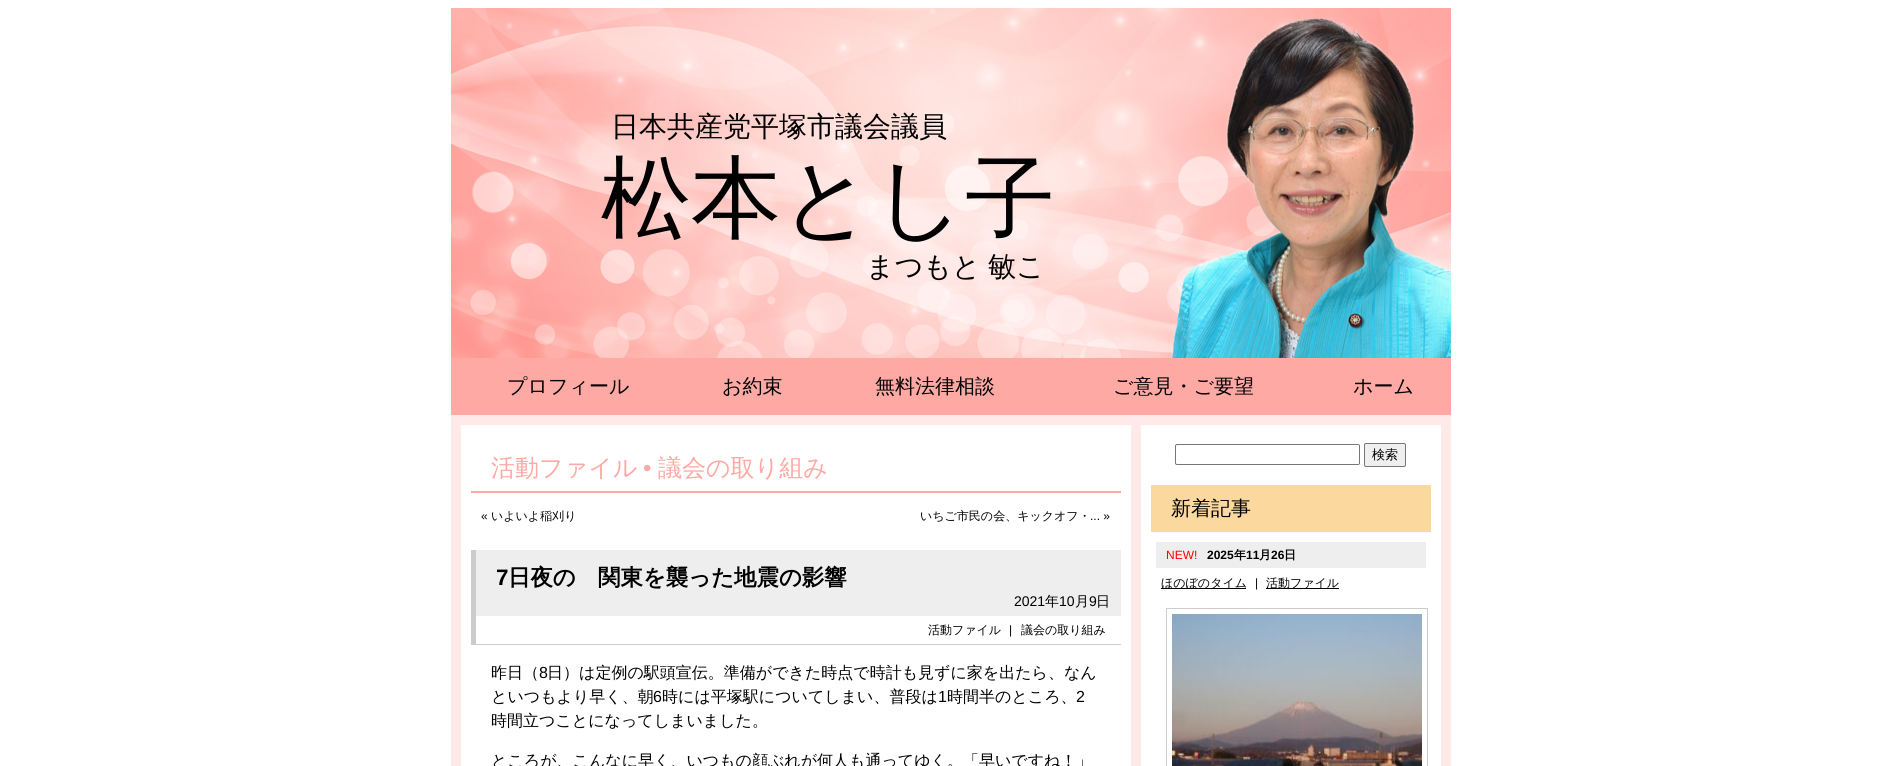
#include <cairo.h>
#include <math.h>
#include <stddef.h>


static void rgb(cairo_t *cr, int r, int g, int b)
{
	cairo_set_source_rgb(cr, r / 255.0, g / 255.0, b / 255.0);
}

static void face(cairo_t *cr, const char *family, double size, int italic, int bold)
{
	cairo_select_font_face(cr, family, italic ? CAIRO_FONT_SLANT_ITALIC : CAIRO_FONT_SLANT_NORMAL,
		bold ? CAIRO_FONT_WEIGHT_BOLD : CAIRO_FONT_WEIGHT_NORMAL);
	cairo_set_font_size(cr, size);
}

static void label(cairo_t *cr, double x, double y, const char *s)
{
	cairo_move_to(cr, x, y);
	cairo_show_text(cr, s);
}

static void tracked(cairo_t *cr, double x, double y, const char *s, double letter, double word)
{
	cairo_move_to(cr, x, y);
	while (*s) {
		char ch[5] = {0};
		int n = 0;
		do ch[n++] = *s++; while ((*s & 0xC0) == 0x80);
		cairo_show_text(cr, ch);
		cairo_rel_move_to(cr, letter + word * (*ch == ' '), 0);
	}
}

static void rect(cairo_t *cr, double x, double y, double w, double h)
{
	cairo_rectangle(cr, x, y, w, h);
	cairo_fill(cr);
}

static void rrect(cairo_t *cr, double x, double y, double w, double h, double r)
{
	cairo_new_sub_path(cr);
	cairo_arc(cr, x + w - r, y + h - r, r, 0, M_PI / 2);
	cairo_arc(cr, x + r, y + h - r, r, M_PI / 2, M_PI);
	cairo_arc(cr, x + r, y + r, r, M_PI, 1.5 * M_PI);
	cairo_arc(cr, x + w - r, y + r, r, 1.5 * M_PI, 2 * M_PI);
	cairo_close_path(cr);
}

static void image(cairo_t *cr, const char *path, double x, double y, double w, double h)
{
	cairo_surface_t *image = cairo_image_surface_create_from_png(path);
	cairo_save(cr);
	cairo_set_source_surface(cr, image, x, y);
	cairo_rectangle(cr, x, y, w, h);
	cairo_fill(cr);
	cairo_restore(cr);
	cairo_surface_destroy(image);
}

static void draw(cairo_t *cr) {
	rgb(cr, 255, 255, 255);
	cairo_paint(cr);
	image(cr, "image0.png", 451, 8, 1000, 350);
	face(cr, "WenQuanYi Zen Hei Medium", 28, 0, 0);
	rgb(cr, 0, 0, 0);
	label(cr, 611, 136, "日本共産党平塚市議会議員");
	face(cr, "WenQuanYi Zen Hei Medium", 90, 0, 0);
	label(cr, 601, 229, "松本とし子");
	face(cr, "WenQuanYi Zen Hei Medium", 28, 0, 0);
	tracked(cr, 866, 276, "まつもと 敏こ", 0, -1);
	rgb(cr, 254, 169, 164);
	rect(cr, 451, 358, 1000, 57);
	face(cr, "WenQuanYi Zen Hei Medium", 20, 0, 0);
	rgb(cr, 0, 0, 0);
	label(cr, 507, 393, "プロフィール");
	label(cr, 722, 393, "お約束");
	label(cr, 875, 393, "無料法律相談");
	label(cr, 1113, 393, "ご意見・ご要望");
	label(cr, 1353, 393, "ホーム");
	rgb(cr, 255, 234, 233);
	rect(cr, 451, 415, 1000, 351);
	rgb(cr, 255, 255, 255);
	rect(cr, 461, 425, 670, 341);
	rgb(cr, 254, 169, 164);
	rect(cr, 471, 491, 650, 2);
	face(cr, "WenQuanYi Zen Hei Medium", 24, 0, 0);
	label(cr, 491, 476, "活動ファイル");
	face(cr, "Liberation Sans", 24, 0, 0);
	label(cr, 643, 476, "•");
	face(cr, "WenQuanYi Zen Hei Medium", 24, 0, 0);
	label(cr, 658, 476, "議会の取り組み");
	face(cr, "Liberation Sans", 12, 0, 0);
	rgb(cr, 0, 0, 0);
	label(cr, 481, 520, "«");
	face(cr, "WenQuanYi Zen Hei Medium", 12, 0, 0);
	label(cr, 491, 520, "いよいよ稲刈り");
	label(cr, 920, 520, "いちご市民の会、キックオフ・");
	face(cr, "Liberation Sans", 12, 0, 0);
	label(cr, 1090, 520, "... »");
	rgb(cr, 238, 238, 238);
	rect(cr, 476, 550, 645, 66);
	rgb(cr, 204, 204, 204);
	rect(cr, 471, 550, 5, 66);
	face(cr, "Liberation Sans", 22.4, 0, 1);
	rgb(cr, 0, 0, 0);
	label(cr, 496, 585, "7");
	face(cr, "WenQuanYi Zen Hei", 22.4, 0, 1);
	label(cr, 508, 585, "日夜の　関東を襲った地震の影響");
	face(cr, "Liberation Sans", 14, 0, 0);
	label(cr, 1014, 606, "2021");
	face(cr, "WenQuanYi Zen Hei Medium", 14, 0, 0);
	label(cr, 1045, 606, "年");
	face(cr, "Liberation Sans", 14, 0, 0);
	label(cr, 1059, 606, "10");
	face(cr, "WenQuanYi Zen Hei Medium", 14, 0, 0);
	label(cr, 1075, 606, "月");
	face(cr, "Liberation Sans", 14, 0, 0);
	label(cr, 1089, 606, "9");
	face(cr, "WenQuanYi Zen Hei Medium", 14, 0, 0);
	label(cr, 1096, 606, "日");
	rgb(cr, 204, 204, 204);
	rect(cr, 471, 644, 650, 1);
	rect(cr, 471, 616, 5, 29);
	face(cr, "WenQuanYi Zen Hei Medium", 12, 0, 0);
	rgb(cr, 0, 0, 0);
	label(cr, 928, 634, "活動ファイル");
	face(cr, "Liberation Sans", 12, 0, 0);
	label(cr, 1009, 634, "|");
	face(cr, "WenQuanYi Zen Hei Medium", 12, 0, 0);
	label(cr, 1021, 634, "議会の取り組み");
	face(cr, "WenQuanYi Zen Hei Medium", 16, 0, 0);
	label(cr, 491, 678, "昨日（");
	face(cr, "Liberation Sans", 16, 0, 0);
	label(cr, 539, 678, "8");
	face(cr, "WenQuanYi Zen Hei Medium", 16, 0, 0);
	label(cr, 547, 678, "日）は定例の駅頭宣伝。準備ができた時点で時計も見ずに家を出たら、なん");
	label(cr, 491, 702, "といつもより早く、朝");
	face(cr, "Liberation Sans", 16, 0, 0);
	label(cr, 653, 702, "6");
	face(cr, "WenQuanYi Zen Hei Medium", 16, 0, 0);
	label(cr, 662, 702, "時には平塚駅についてしまい、普段は");
	face(cr, "Liberation Sans", 16, 0, 0);
	label(cr, 938, 702, "1");
	face(cr, "WenQuanYi Zen Hei Medium", 16, 0, 0);
	label(cr, 947, 702, "時間半のところ、");
	face(cr, "Liberation Sans", 16, 0, 0);
	label(cr, 1076, 702, "2");
	face(cr, "WenQuanYi Zen Hei Medium", 16, 0, 0);
	label(cr, 491, 726, "時間立つことになってしまいました。");
	label(cr, 491, 766, "ところが、こんなに早く、いつもの顔ぶれが何人も通ってゆく。「早いですね！」");
	rgb(cr, 255, 255, 255);
	rect(cr, 1141, 425, 300, 341);
	rrect(cr, 1175.5, 444.5, 184, 20, 1.5);
	rgb(cr, 118, 118, 118);
	cairo_set_line_width(cr, 1);
	cairo_stroke(cr);
	rgb(cr, 239, 239, 239);
	rrect(cr, 1364.5, 443.5, 41, 23, 1.5);
	cairo_fill_preserve(cr);
	rgb(cr, 118, 118, 118);
	cairo_stroke(cr);
	face(cr, "WenQuanYi Zen Hei Medium", 13, 0, 0);
	rgb(cr, 0, 0, 0);
	label(cr, 1372, 459, "検索");
	rgb(cr, 251, 216, 158);
	rect(cr, 1151, 485, 280, 47);
	face(cr, "WenQuanYi Zen Hei Medium", 20, 0, 0);
	rgb(cr, 0, 0, 0);
	label(cr, 1171, 515, "新着記事");
	rgb(cr, 238, 238, 238);
	rect(cr, 1156, 542, 270, 26);
	face(cr, "Liberation Sans", 12, 0, 0);
	rgb(cr, 255, 0, 0);
	label(cr, 1166, 559, "NEW!");
	face(cr, "Liberation Sans", 12, 0, 1);
	rgb(cr, 0, 0, 0);
	label(cr, 1207, 559, "2025");
	face(cr, "WenQuanYi Zen Hei", 12, 0, 1);
	label(cr, 1234, 559, "年");
	face(cr, "Liberation Sans", 12, 0, 1);
	label(cr, 1246, 559, "11");
	face(cr, "WenQuanYi Zen Hei", 12, 0, 1);
	label(cr, 1259, 559, "月");
	face(cr, "Liberation Sans", 12, 0, 1);
	label(cr, 1271, 559, "26");
	face(cr, "WenQuanYi Zen Hei", 12, 0, 1);
	label(cr, 1284, 559, "日");
	rect(cr, 1161, 588, 85, 1);
	face(cr, "WenQuanYi Zen Hei Medium", 12, 0, 0);
	label(cr, 1161, 587, "ほのぼのタイム");
	face(cr, "Liberation Sans", 12, 0, 0);
	label(cr, 1255, 587, "|");
	rect(cr, 1266, 588, 73, 1);
	face(cr, "WenQuanYi Zen Hei Medium", 12, 0, 0);
	label(cr, 1266, 587, "活動ファイル");
	cairo_rectangle(cr, 1166.5, 608.5, 261, 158);
	rgb(cr, 204, 204, 204);
	cairo_stroke(cr);
	image(cr, "image1.png", 1172, 614, 250, 152);
}

int main(void) {
	cairo_surface_t *surface = cairo_image_surface_create(CAIRO_FORMAT_RGB24, 1901, 766);
	cairo_t *cr = cairo_create(surface);
	cairo_font_options_t *options = cairo_font_options_create();
	cairo_font_options_set_hint_metrics(options, CAIRO_HINT_METRICS_OFF);
	cairo_font_options_set_hint_style(options, CAIRO_HINT_STYLE_NONE);
	cairo_set_font_options(cr, options);
	cairo_set_miter_limit(cr, 4);
	draw(cr);
	cairo_surface_write_to_png(surface, "render.png");
	cairo_font_options_destroy(options);
	cairo_destroy(cr);
	cairo_surface_destroy(surface);
	return 0;
}
